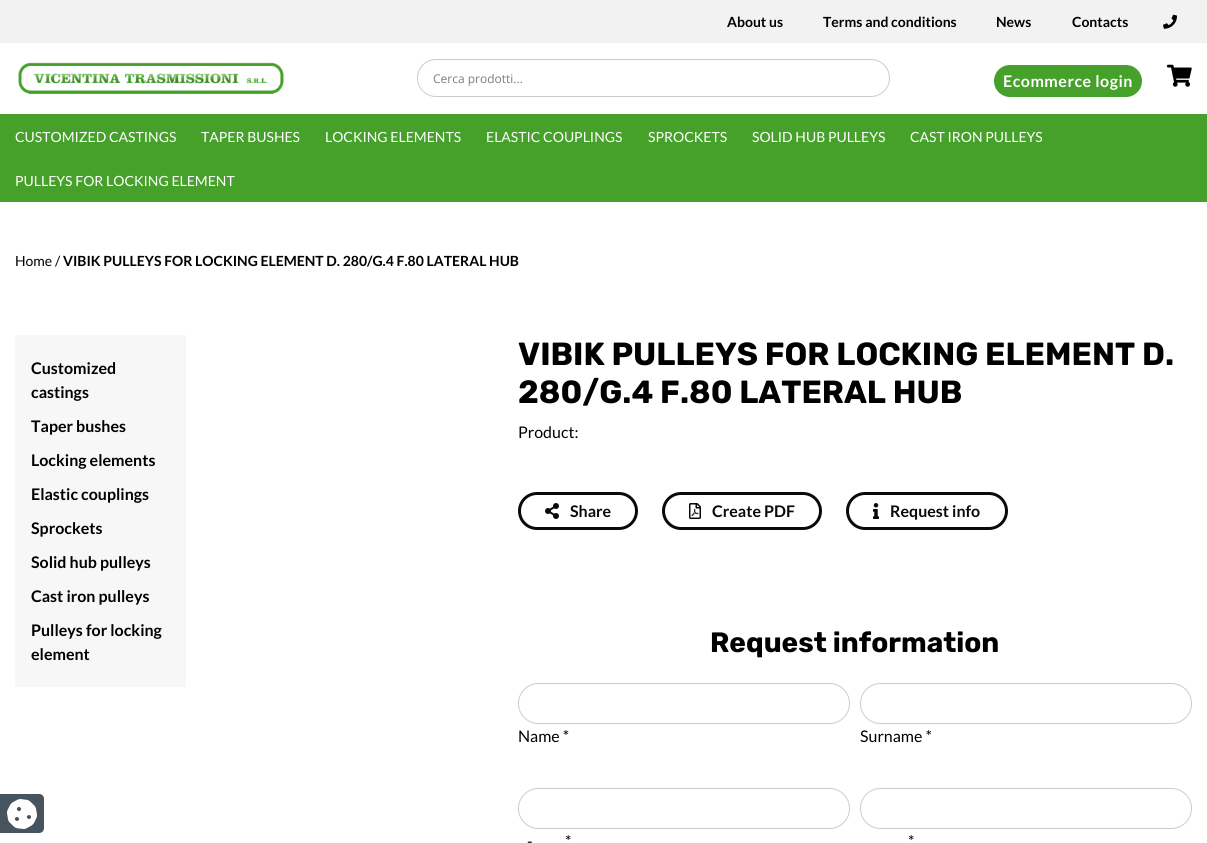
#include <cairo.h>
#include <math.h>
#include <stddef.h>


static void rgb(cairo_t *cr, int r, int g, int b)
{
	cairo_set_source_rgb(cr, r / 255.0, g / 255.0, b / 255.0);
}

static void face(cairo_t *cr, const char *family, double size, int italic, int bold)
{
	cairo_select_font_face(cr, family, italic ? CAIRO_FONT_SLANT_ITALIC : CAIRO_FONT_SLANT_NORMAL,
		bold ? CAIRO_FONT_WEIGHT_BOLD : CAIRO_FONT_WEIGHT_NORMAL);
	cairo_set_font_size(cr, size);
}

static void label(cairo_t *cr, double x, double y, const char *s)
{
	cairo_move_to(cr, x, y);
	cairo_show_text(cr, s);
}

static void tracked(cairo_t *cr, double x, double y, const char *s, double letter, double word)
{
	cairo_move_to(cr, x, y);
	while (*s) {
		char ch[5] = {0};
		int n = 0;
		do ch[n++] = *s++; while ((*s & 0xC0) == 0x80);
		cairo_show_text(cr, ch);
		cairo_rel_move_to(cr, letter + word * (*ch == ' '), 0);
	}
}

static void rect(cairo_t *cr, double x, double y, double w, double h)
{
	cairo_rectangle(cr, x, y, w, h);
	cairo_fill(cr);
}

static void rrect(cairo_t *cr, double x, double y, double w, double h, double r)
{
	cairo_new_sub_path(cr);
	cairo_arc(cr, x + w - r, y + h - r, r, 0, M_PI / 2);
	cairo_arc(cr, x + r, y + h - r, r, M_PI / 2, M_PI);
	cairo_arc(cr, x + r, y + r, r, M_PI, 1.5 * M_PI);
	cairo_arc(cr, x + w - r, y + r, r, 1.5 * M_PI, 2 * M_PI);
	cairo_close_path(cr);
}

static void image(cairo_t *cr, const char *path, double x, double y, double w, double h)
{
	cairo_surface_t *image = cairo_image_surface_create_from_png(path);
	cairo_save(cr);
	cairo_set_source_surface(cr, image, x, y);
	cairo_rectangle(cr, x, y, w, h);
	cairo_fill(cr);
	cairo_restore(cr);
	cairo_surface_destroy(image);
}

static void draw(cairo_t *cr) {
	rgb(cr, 255, 255, 255);
	cairo_paint(cr);
	rgb(cr, 242, 242, 242);
	rect(cr, 0, 0, 1207, 43);
	face(cr, "Lato", 14, 0, 1);
	rgb(cr, 0, 0, 0);
	label(cr, 727, 27, "About us");
	label(cr, 823, 27, "Terms and conditions");
	label(cr, 996, 27, "News");
	label(cr, 1072, 27, "Contacts");
	image(cr, "image0.png", 1163, 14, 14, 15);
	image(cr, "image1.png", 18, 62, 266, 32);
	rrect(cr, 417.5, 59.5, 472, 37, 18.5);
	rgb(cr, 204, 204, 204);
	cairo_set_line_width(cr, 1);
	cairo_stroke(cr);
	face(cr, "Open Sans", 12, 0, 0);
	rgb(cr, 125, 125, 125);
	label(cr, 433, 83, "Cerca prodotti...");
	rgb(cr, 69, 161, 42);
	rrect(cr, 994, 65, 148, 32, 16);
	cairo_fill(cr);
	face(cr, "Lato", 16, 0, 1);
	rgb(cr, 255, 255, 255);
	tracked(cr, 1003, 87, "Ecommerce login", 0.5, 0);
	image(cr, "image2.png", 1167, 64, 25, 23);
	rgb(cr, 69, 161, 42);
	rect(cr, 0, 114, 1207, 88);
	face(cr, "Lato", 14, 0, 0);
	rgb(cr, 255, 255, 255);
	label(cr, 15, 142, "CUSTOMIZED CASTINGS");
	label(cr, 201, 142, "TAPER BUSHES");
	label(cr, 325, 142, "LOCKING ELEMENTS");
	label(cr, 486, 142, "ELASTIC COUPLINGS");
	label(cr, 648, 142, "SPROCKETS");
	label(cr, 752, 142, "SOLID HUB PULLEYS");
	label(cr, 910, 142, "CAST IRON PULLEYS");
	label(cr, 15, 186, "PULLEYS FOR LOCKING ELEMENT");
	rgb(cr, 0, 0, 0);
	label(cr, 15, 266, "Home /");
	face(cr, "Lato", 14, 0, 1);
	label(cr, 63, 266, "VIBIK PULLEYS FOR LOCKING ELEMENT D. 280/G.4 F.80 LATERAL HUB");
	rgb(cr, 71, 84, 93);
	cairo_new_path(cr);
	cairo_move_to(cr, 0, 794);
	cairo_line_to(cr, 39, 794);
	cairo_curve_to(cr, 42, 794, 44, 796, 44, 799);
	cairo_line_to(cr, 44, 828);
	cairo_curve_to(cr, 44, 831, 42, 833, 39, 833);
	cairo_line_to(cr, 0, 833);
	cairo_close_path(cr);
	cairo_fill(cr);
	image(cr, "image3.png", 7, 799, 30, 30);
	rgb(cr, 247, 247, 247);
	rect(cr, 15, 335, 171, 352);
	face(cr, "Lato", 16, 0, 1);
	rgb(cr, 0, 0, 0);
	label(cr, 31, 374, "Customized");
	label(cr, 31, 398, "castings");
	label(cr, 31, 432, "Taper bushes");
	label(cr, 31, 466, "Locking elements");
	label(cr, 31, 500, "Elastic couplings");
	label(cr, 31, 534, "Sprockets");
	label(cr, 31, 568, "Solid hub pulleys");
	label(cr, 31, 602, "Cast iron pulleys");
	label(cr, 31, 636, "Pulleys for locking");
	label(cr, 31, 660, "element");
	face(cr, "Rubik", 32, 0, 1);
	label(cr, 518, 365, "VIBIK PULLEYS FOR LOCKING ELEMENT D.");
	label(cr, 518, 403, "280/G.4 F.80 LATERAL HUB");
	face(cr, "Lato", 16, 0, 0);
	label(cr, 518, 438, "Product:");
	rrect(cr, 519.5, 493.5, 117, 35, 17.5);
	rgb(cr, 10, 10, 10);
	cairo_set_line_width(cr, 3);
	cairo_stroke(cr);
	image(cr, "image4.png", 545, 503, 14, 16);
	face(cr, "Lato", 16, 0, 1);
	label(cr, 570, 517, "Share");
	rrect(cr, 663.5, 493.5, 157, 35, 17.5);
	cairo_stroke(cr);
	image(cr, "image5.png", 689, 503, 12, 16);
	label(cr, 712, 517, "Create PDF");
	rrect(cr, 847.5, 493.5, 159, 35, 17.5);
	cairo_stroke(cr);
	image(cr, "image6.png", 873, 503, 6, 16);
	label(cr, 890, 517, "Request info");
	face(cr, "Rubik", 28, 0, 1);
	rgb(cr, 0, 0, 0);
	label(cr, 710, 652, "Request information");
	rrect(cr, 518.5, 683.5, 331, 40, 20);
	rgb(cr, 204, 204, 204);
	cairo_set_line_width(cr, 1);
	cairo_stroke(cr);
	face(cr, "Lato", 16, 0, 0);
	rgb(cr, 0, 0, 0);
	label(cr, 518, 742, "Name *");
	rrect(cr, 860.5, 683.5, 331, 40, 20);
	rgb(cr, 204, 204, 204);
	cairo_stroke(cr);
	rgb(cr, 0, 0, 0);
	label(cr, 860, 742, "Surname *");
	rrect(cr, 518.5, 788.5, 331, 40, 20);
	rgb(cr, 204, 204, 204);
	cairo_stroke(cr);
	rgb(cr, 0, 0, 0);
	label(cr, 565, 847, "*");
	label(cr, 527, 847, "-");
	rrect(cr, 860.5, 788.5, 331, 40, 20);
	rgb(cr, 204, 204, 204);
	cairo_stroke(cr);
	rgb(cr, 0, 0, 0);
	label(cr, 908, 847, "*");
}

int main(void) {
	cairo_surface_t *surface = cairo_image_surface_create(CAIRO_FORMAT_RGB24, 1207, 843);
	cairo_t *cr = cairo_create(surface);
	cairo_font_options_t *options = cairo_font_options_create();
	cairo_font_options_set_hint_metrics(options, CAIRO_HINT_METRICS_OFF);
	cairo_font_options_set_hint_style(options, CAIRO_HINT_STYLE_NONE);
	cairo_set_font_options(cr, options);
	cairo_set_miter_limit(cr, 4);
	draw(cr);
	cairo_surface_write_to_png(surface, "render.png");
	cairo_font_options_destroy(options);
	cairo_destroy(cr);
	cairo_surface_destroy(surface);
	return 0;
}
